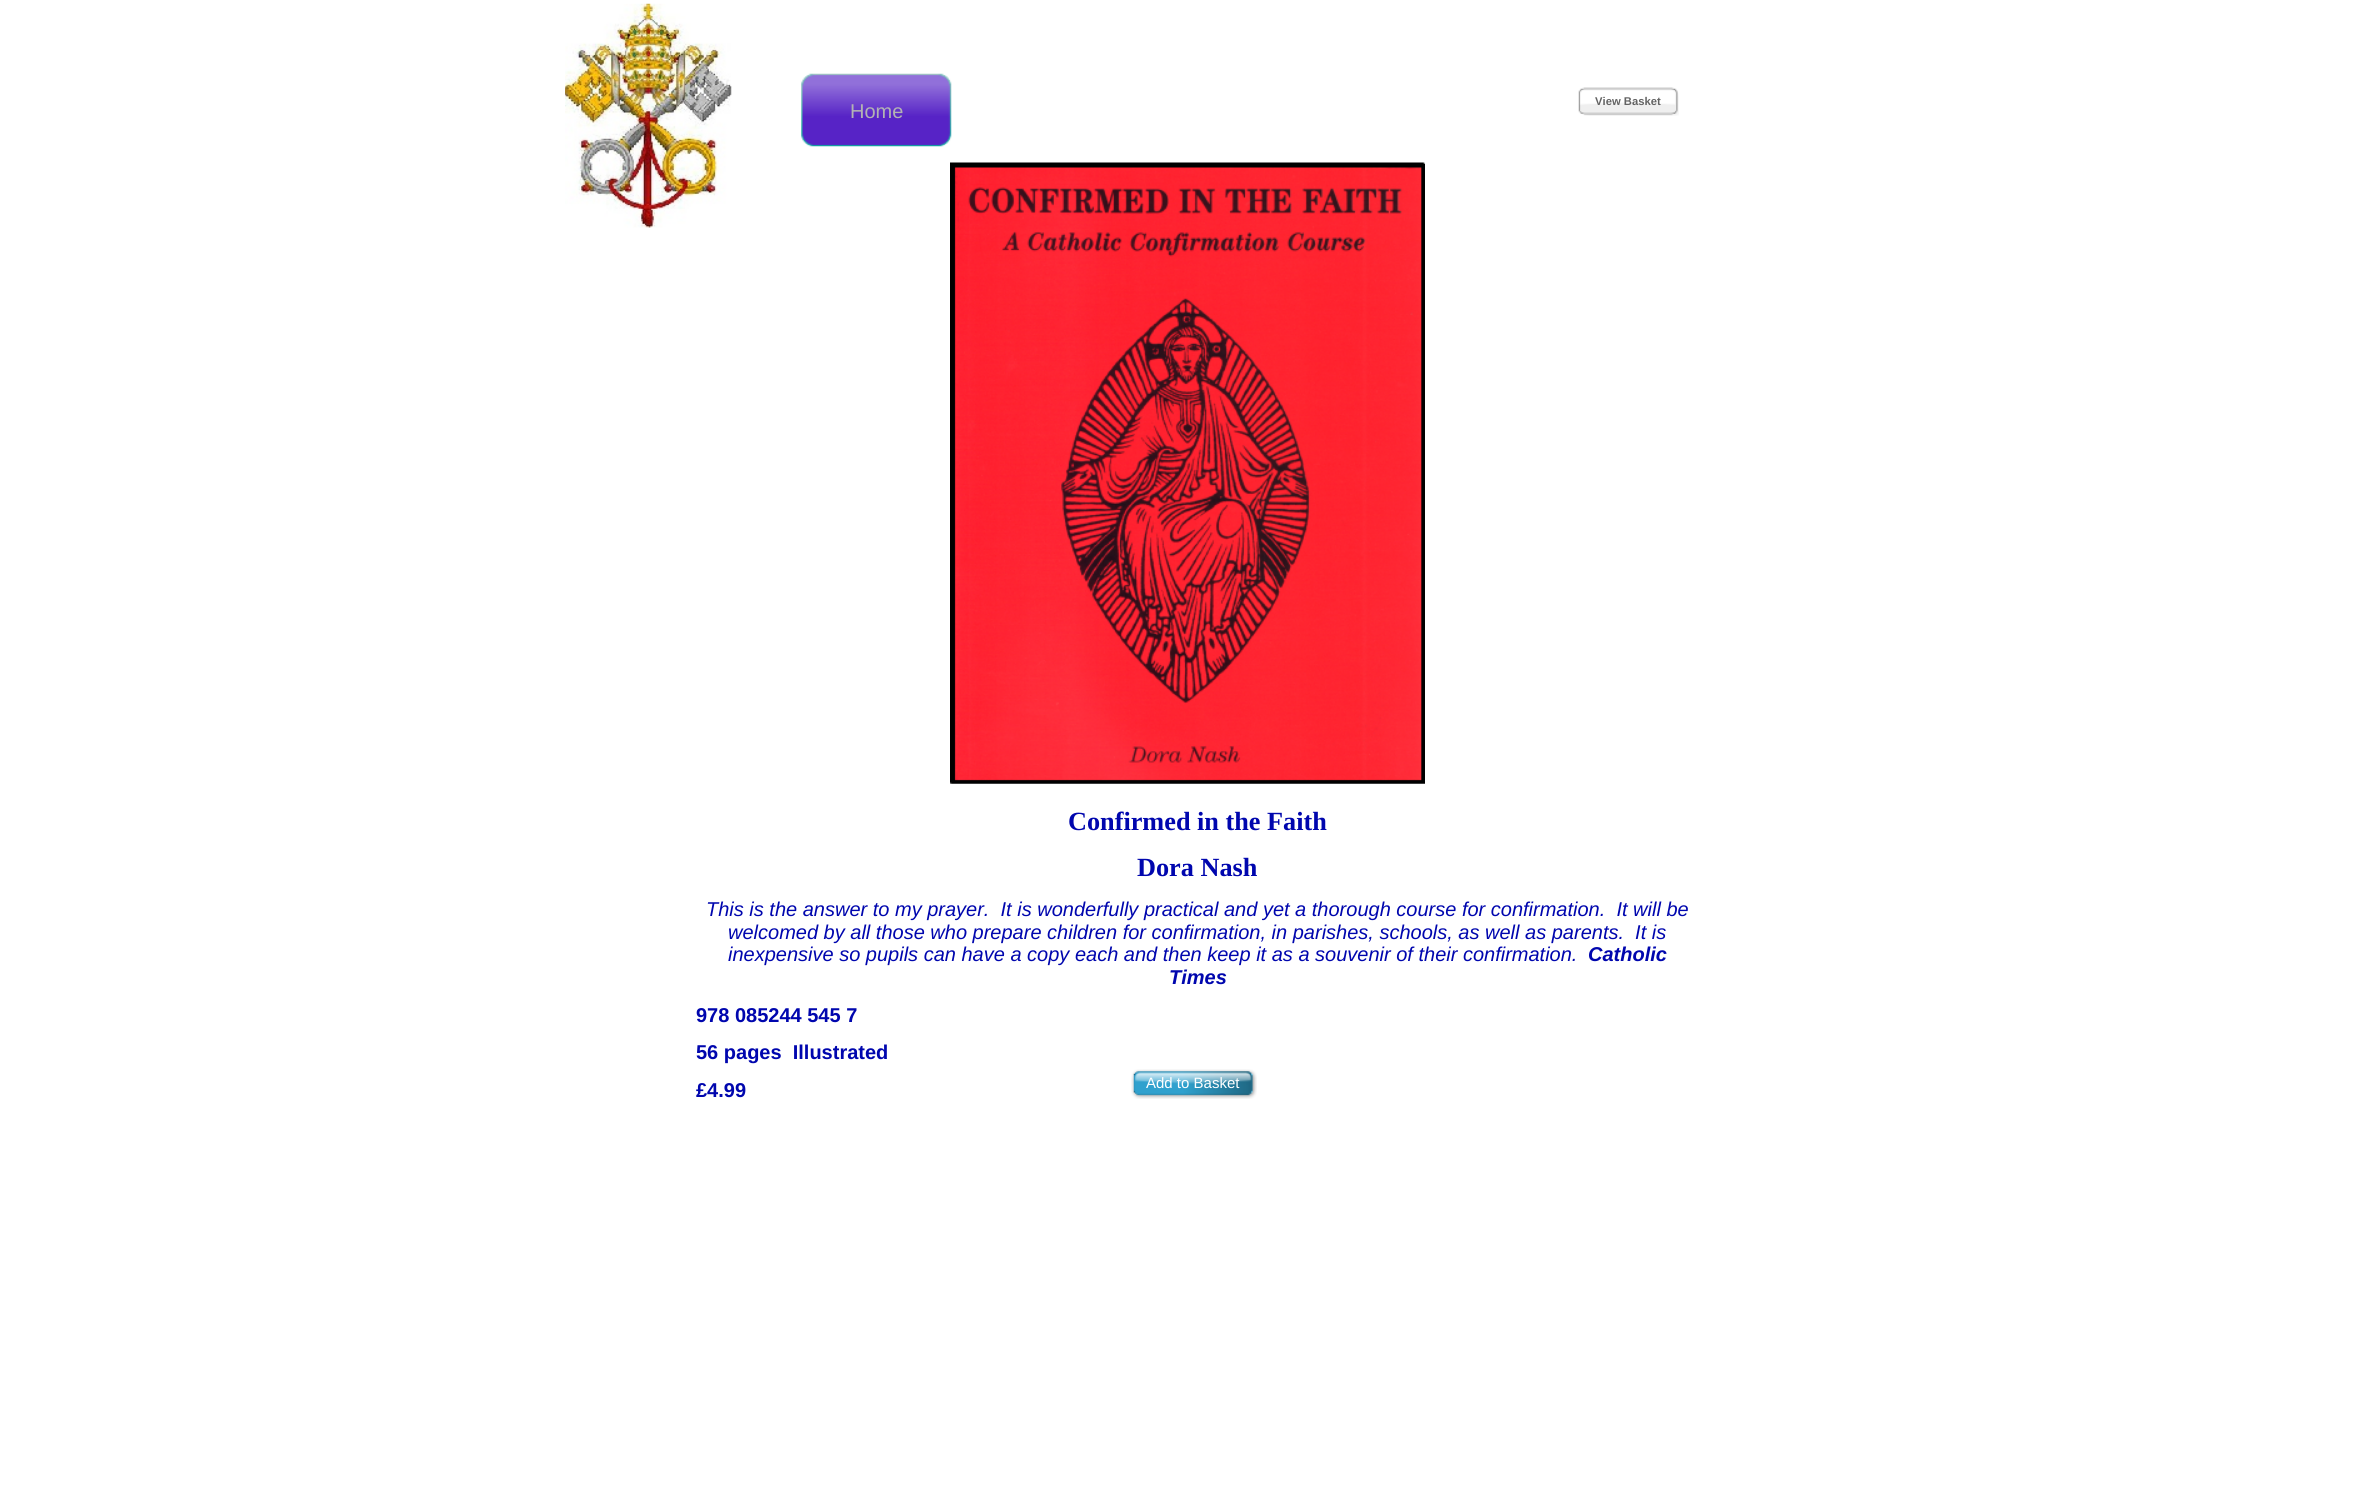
#include <cairo.h>
#include <math.h>
#include <stddef.h>


static void rgb(cairo_t *cr, int r, int g, int b)
{
	cairo_set_source_rgb(cr, r / 255.0, g / 255.0, b / 255.0);
}

static void face(cairo_t *cr, const char *family, double size, int italic, int bold)
{
	cairo_select_font_face(cr, family, italic ? CAIRO_FONT_SLANT_ITALIC : CAIRO_FONT_SLANT_NORMAL,
		bold ? CAIRO_FONT_WEIGHT_BOLD : CAIRO_FONT_WEIGHT_NORMAL);
	cairo_set_font_size(cr, size);
}

static void label(cairo_t *cr, double x, double y, const char *s)
{
	cairo_move_to(cr, x, y);
	cairo_show_text(cr, s);
}

static void image(cairo_t *cr, const char *path, double x, double y, double w, double h)
{
	cairo_surface_t *image = cairo_image_surface_create_from_png(path);
	cairo_save(cr);
	cairo_set_source_surface(cr, image, x, y);
	cairo_rectangle(cr, x, y, w, h);
	cairo_fill(cr);
	cairo_restore(cr);
	cairo_surface_destroy(image);
}

static void draw(cairo_t *cr) {
	rgb(cr, 255, 255, 255);
	cairo_paint(cr);
	image(cr, "image0.png", 565, 3, 167, 225);
	image(cr, "image1.png", 1578, 87, 101, 29);
	face(cr, "Liberation Sans", 11.25, 0, 1);
	rgb(cr, 99, 99, 99);
	label(cr, 1595, 105, "View Basket");
	image(cr, "image2.png", 801, 73, 151, 74);
	face(cr, "Liberation Sans", 20, 0, 0);
	rgb(cr, 179, 179, 179);
	label(cr, 850, 118, "Home");
	image(cr, "image3.png", 950, 162, 475, 622);
	face(cr, "Liberation Serif", 26.25, 0, 1);
	rgb(cr, 0, 6, 174);
	label(cr, 1068, 830, "Confirmed in the Faith");
	label(cr, 1137, 876, "Dora Nash");
	face(cr, "Liberation Sans", 20, 1, 0);
	label(cr, 706, 916, "This is the answer to my prayer.  It is wonderfully practical and yet a thorough course for confirmation.  It will be");
	label(cr, 728, 939, "welcomed by all those who prepare children for confirmation, in parishes, schools, as well as parents.  It is");
	label(cr, 728, 961, "inexpensive so pupils can have a copy each and then keep it as a souvenir of their confirmation.");
	face(cr, "Liberation Sans", 20, 1, 1);
	label(cr, 1588, 961, "Catholic");
	label(cr, 1169, 984, "Times");
	face(cr, "Liberation Sans", 20, 0, 1);
	label(cr, 696, 1022, "978 085244 545 7");
	label(cr, 696, 1059, "56 pages  Illustrated");
	label(cr, 696, 1097, "£4.99");
	image(cr, "image4.png", 1131, 1069, 126, 30);
	face(cr, "Liberation Sans", 15, 0, 0);
	rgb(cr, 255, 255, 255);
	label(cr, 1146, 1088, "Add to Basket");
}

int main(void) {
	cairo_surface_t *surface = cairo_image_surface_create(CAIRO_FORMAT_RGB24, 2374, 1493);
	cairo_t *cr = cairo_create(surface);
	cairo_font_options_t *options = cairo_font_options_create();
	cairo_font_options_set_hint_metrics(options, CAIRO_HINT_METRICS_OFF);
	cairo_font_options_set_hint_style(options, CAIRO_HINT_STYLE_NONE);
	cairo_set_font_options(cr, options);
	cairo_set_miter_limit(cr, 4);
	draw(cr);
	cairo_surface_write_to_png(surface, "render.png");
	cairo_font_options_destroy(options);
	cairo_destroy(cr);
	cairo_surface_destroy(surface);
	return 0;
}
